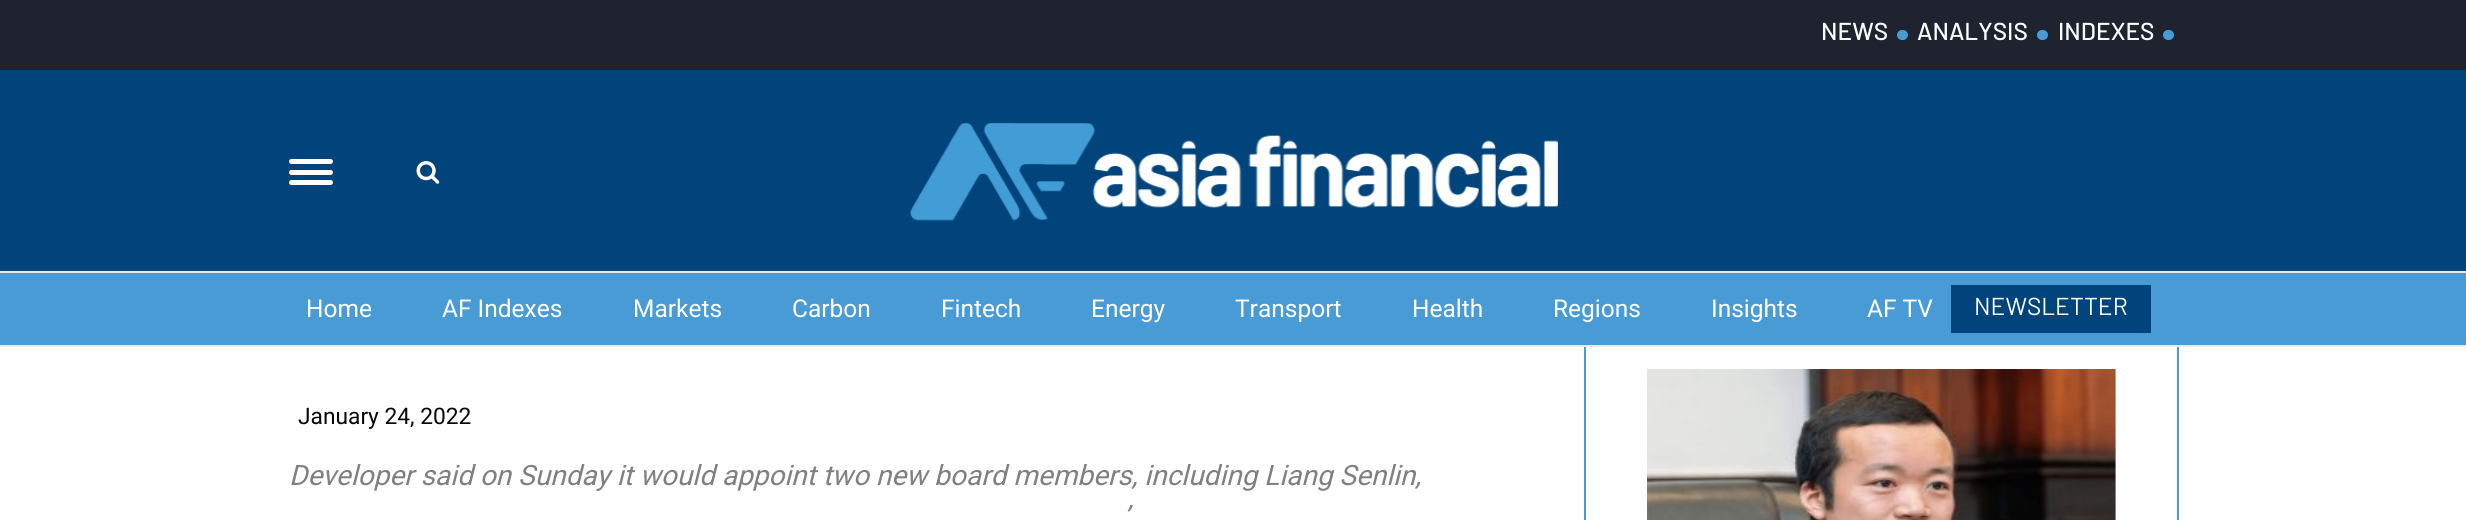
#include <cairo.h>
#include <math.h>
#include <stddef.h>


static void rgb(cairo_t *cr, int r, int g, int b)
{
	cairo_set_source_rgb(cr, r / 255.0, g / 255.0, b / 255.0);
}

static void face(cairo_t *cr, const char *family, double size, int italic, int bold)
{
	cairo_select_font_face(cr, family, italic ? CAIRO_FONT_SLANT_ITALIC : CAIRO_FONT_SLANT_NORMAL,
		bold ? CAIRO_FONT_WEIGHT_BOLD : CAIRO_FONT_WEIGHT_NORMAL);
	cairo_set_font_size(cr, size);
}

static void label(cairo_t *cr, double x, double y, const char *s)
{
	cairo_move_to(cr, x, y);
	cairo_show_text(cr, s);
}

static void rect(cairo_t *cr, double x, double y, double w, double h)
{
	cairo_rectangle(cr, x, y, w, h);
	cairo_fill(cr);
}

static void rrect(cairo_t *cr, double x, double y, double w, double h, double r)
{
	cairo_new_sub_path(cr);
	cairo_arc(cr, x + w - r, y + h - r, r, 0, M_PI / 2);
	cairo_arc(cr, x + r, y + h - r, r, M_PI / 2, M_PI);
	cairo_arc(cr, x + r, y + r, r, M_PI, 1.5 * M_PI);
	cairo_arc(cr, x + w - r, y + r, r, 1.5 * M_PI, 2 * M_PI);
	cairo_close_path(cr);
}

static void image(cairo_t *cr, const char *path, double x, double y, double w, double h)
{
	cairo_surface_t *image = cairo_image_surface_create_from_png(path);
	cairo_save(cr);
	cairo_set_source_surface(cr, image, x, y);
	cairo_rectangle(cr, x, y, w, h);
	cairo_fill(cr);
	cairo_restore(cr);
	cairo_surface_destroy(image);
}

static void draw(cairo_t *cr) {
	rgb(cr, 255, 255, 255);
	cairo_paint(cr);
	cairo_rectangle(cr, 1585, 250, 593, 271);
	rgb(cr, 72, 155, 212);
	cairo_stroke(cr);
	rgb(cr, 234, 234, 234);
	rect(cr, 0, 345, 2466, 2);
	rgb(cr, 72, 155, 212);
	rect(cr, 0, 273, 2466, 72);
	rgb(cr, 31, 35, 48);
	rect(cr, 0, 0, 2466, 70);
	face(cr, "Barlow Medium", 24.5, 0, 0);
	rgb(cr, 255, 255, 255);
	label(cr, 1821, 40, "NEWS");
	rgb(cr, 72, 156, 213);
	rrect(cr, 1897, 30, 11, 10, 5);
	cairo_fill(cr);
	rgb(cr, 255, 255, 255);
	label(cr, 1917, 40, "ANALYSIS");
	rgb(cr, 72, 156, 213);
	rrect(cr, 2037, 30, 11, 10, 5);
	cairo_fill(cr);
	rgb(cr, 255, 255, 255);
	label(cr, 2058, 40, "INDEXES");
	rgb(cr, 72, 156, 213);
	rrect(cr, 2163, 30, 11, 10, 5);
	cairo_fill(cr);
	face(cr, "Roboto", 24.5, 0, 0);
	rgb(cr, 255, 255, 255);
	label(cr, 306, 317, "Home");
	label(cr, 442, 317, "AF Indexes");
	label(cr, 633, 317, "Markets");
	label(cr, 792, 317, "Carbon");
	label(cr, 941, 317, "Fintech");
	label(cr, 1091, 317, "Energy");
	label(cr, 1235, 317, "Transport");
	label(cr, 1412, 317, "Health");
	label(cr, 1553, 317, "Regions");
	label(cr, 1711, 317, "Insights");
	label(cr, 1867, 317, "AF TV");
	rgb(cr, 0, 68, 123);
	rect(cr, 0, 70, 2466, 201);
	rgb(cr, 234, 234, 234);
	rect(cr, 0, 271, 2466, 2);
	rgb(cr, 255, 255, 255);
	rrect(cr, 289, 159, 44, 5, 2.5);
	cairo_fill(cr);
	rrect(cr, 289, 170, 44, 5, 2.5);
	cairo_fill(cr);
	rrect(cr, 289, 180, 44, 5, 2.5);
	cairo_fill(cr);
	image(cr, "image0.png", 416, 161, 24, 23);
	image(cr, "image1.png", 910, 123, 648, 98);
	rgb(cr, 0, 68, 123);
	rect(cr, 1951, 285, 200, 48);
	face(cr, "Barlow", 24.5, 0, 0);
	rgb(cr, 255, 255, 255);
	label(cr, 1974, 315, "NEWSLETTER");
	face(cr, "Roboto", 22.75, 0, 0);
	rgb(cr, 8, 8, 8);
	label(cr, 298, 424, "January 24, 2022");
	face(cr, "Roboto", 28, 1, 0);
	rgb(cr, 128, 128, 128);
	label(cr, 289, 485, "Developer said on Sunday it would appoint two new board members, including Liang Senlin,");
	label(cr, 1123, 526, "’");
	image(cr, "image2.png", 1647, 369, 469, 151);
}

int main(void) {
	cairo_surface_t *surface = cairo_image_surface_create(CAIRO_FORMAT_RGB24, 2466, 520);
	cairo_t *cr = cairo_create(surface);
	cairo_font_options_t *options = cairo_font_options_create();
	cairo_font_options_set_hint_metrics(options, CAIRO_HINT_METRICS_OFF);
	cairo_font_options_set_hint_style(options, CAIRO_HINT_STYLE_NONE);
	cairo_set_font_options(cr, options);
	cairo_set_miter_limit(cr, 4);
	draw(cr);
	cairo_surface_write_to_png(surface, "render.png");
	cairo_font_options_destroy(options);
	cairo_destroy(cr);
	cairo_surface_destroy(surface);
	return 0;
}
